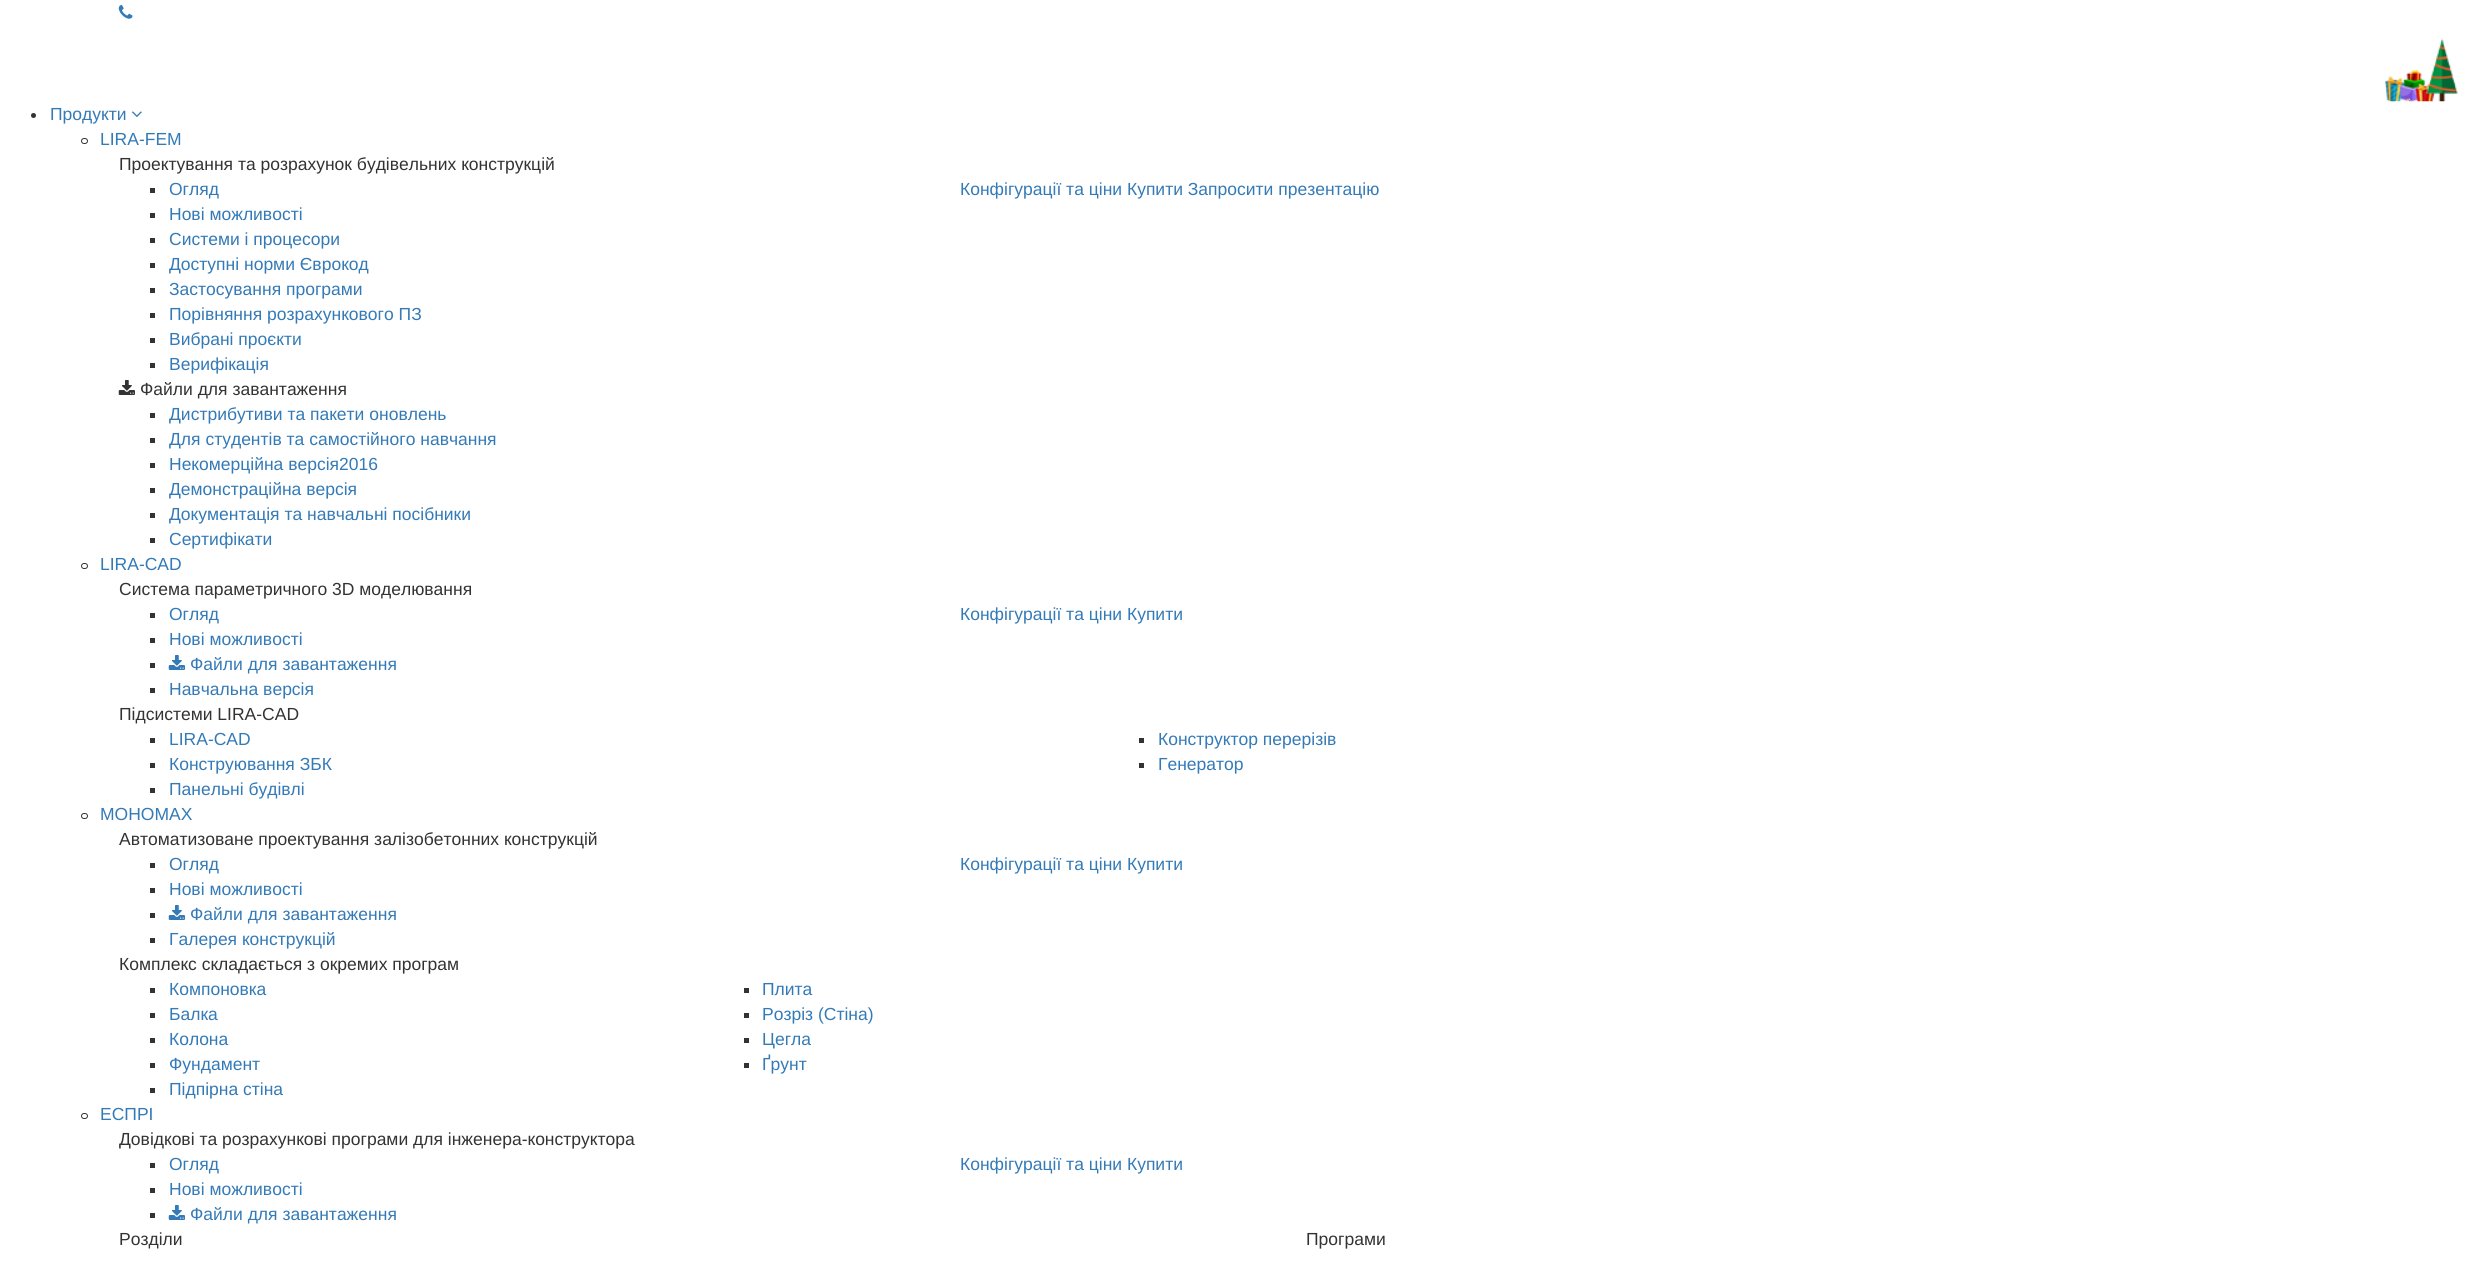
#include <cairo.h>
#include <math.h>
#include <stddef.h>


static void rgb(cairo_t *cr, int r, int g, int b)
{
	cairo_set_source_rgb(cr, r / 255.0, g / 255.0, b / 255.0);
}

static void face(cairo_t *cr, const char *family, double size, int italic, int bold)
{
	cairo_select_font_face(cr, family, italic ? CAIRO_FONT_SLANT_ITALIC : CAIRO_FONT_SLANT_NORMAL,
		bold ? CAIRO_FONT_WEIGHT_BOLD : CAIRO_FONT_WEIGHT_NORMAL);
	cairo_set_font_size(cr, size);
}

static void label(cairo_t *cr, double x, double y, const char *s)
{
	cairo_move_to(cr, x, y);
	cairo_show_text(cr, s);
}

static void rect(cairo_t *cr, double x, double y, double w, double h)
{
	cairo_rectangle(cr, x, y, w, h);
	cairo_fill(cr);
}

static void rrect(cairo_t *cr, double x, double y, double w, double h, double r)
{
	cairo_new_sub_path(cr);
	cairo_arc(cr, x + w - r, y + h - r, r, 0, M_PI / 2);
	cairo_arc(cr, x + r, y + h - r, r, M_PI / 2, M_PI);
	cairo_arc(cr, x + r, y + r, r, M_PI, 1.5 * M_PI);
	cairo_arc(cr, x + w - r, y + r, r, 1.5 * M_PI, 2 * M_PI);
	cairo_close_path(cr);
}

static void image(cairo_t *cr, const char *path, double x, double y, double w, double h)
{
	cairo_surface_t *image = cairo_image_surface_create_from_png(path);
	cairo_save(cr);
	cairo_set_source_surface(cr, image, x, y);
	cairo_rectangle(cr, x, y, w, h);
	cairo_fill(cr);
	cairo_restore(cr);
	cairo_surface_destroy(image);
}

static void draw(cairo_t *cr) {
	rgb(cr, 255, 255, 255);
	cairo_paint(cr);
	image(cr, "image0.png", 118, 5, 15, 14);
	image(cr, "image1.png", 2384, 38, 74, 64);
	rgb(cr, 51, 51, 51);
	cairo_arc(cr, 33.5, 115.5, 2.5, 0, 2 * M_PI);
	cairo_fill(cr);
	face(cr, "Liberation Sans", 17.5, 0, 0);
	rgb(cr, 51, 122, 183);
	label(cr, 50, 120, "Продукти");
	image(cr, "image2.png", 132, 111, 10, 6);
	rrect(cr, 81.5, 138.5, 6, 5, 2.5);
	rgb(cr, 51, 51, 51);
	cairo_set_line_width(cr, 1);
	cairo_stroke(cr);
	rgb(cr, 51, 122, 183);
	label(cr, 100, 145, "LIRA-FEM");
	rgb(cr, 51, 51, 51);
	label(cr, 119, 170, "Проектування та розрахунок будівельних конструкцій");
	rect(cr, 150, 188, 5, 5);
	rgb(cr, 51, 122, 183);
	label(cr, 169, 195, "Огляд");
	rgb(cr, 51, 51, 51);
	rect(cr, 150, 213, 5, 5);
	rgb(cr, 51, 122, 183);
	label(cr, 169, 220, "Нові можливості");
	rgb(cr, 51, 51, 51);
	rect(cr, 150, 238, 5, 5);
	rgb(cr, 51, 122, 183);
	label(cr, 169, 245, "Системи і процесори");
	rgb(cr, 51, 51, 51);
	rect(cr, 150, 263, 5, 5);
	rgb(cr, 51, 122, 183);
	label(cr, 169, 270, "Доступні норми Єврокод");
	rgb(cr, 51, 51, 51);
	rect(cr, 150, 288, 5, 5);
	rgb(cr, 51, 122, 183);
	label(cr, 169, 295, "Застосування програми");
	rgb(cr, 51, 51, 51);
	rect(cr, 150, 313, 5, 5);
	rgb(cr, 51, 122, 183);
	label(cr, 169, 320, "Порівняння розрахункового ПЗ");
	rgb(cr, 51, 51, 51);
	rect(cr, 150, 338, 5, 5);
	rgb(cr, 51, 122, 183);
	label(cr, 169, 345, "Вибрані проєкти");
	rgb(cr, 51, 51, 51);
	rect(cr, 150, 363, 5, 5);
	rgb(cr, 51, 122, 183);
	label(cr, 169, 370, "Верифікація");
	label(cr, 960, 195, "Конфігурації та ціни Купити Запросити презентацію");
	image(cr, "image3.png", 118, 380, 17, 15);
	rgb(cr, 51, 51, 51);
	label(cr, 140, 395, "Файли для завантаження");
	rect(cr, 150, 413, 5, 5);
	rgb(cr, 51, 122, 183);
	label(cr, 169, 420, "Дистрибутиви та пакети оновлень");
	rgb(cr, 51, 51, 51);
	rect(cr, 150, 438, 5, 5);
	rgb(cr, 51, 122, 183);
	label(cr, 169, 445, "Для студентів та самостійного навчання");
	rgb(cr, 51, 51, 51);
	rect(cr, 150, 463, 5, 5);
	rgb(cr, 51, 122, 183);
	label(cr, 169, 470, "Некомерційна версія2016");
	rgb(cr, 51, 51, 51);
	rect(cr, 150, 488, 5, 5);
	rgb(cr, 51, 122, 183);
	label(cr, 169, 495, "Демонстраційна версія");
	rgb(cr, 51, 51, 51);
	rect(cr, 150, 513, 5, 5);
	rgb(cr, 51, 122, 183);
	label(cr, 169, 520, "Документація та навчальні посібники");
	rgb(cr, 51, 51, 51);
	rect(cr, 150, 538, 5, 5);
	rgb(cr, 51, 122, 183);
	label(cr, 169, 545, "Сертифікати");
	rrect(cr, 81.5, 563.5, 6, 5, 2.5);
	rgb(cr, 51, 51, 51);
	cairo_stroke(cr);
	rgb(cr, 51, 122, 183);
	label(cr, 100, 570, "LIRA-CAD");
	rgb(cr, 51, 51, 51);
	label(cr, 119, 595, "Система параметричного 3D моделювання");
	rect(cr, 150, 613, 5, 5);
	rgb(cr, 51, 122, 183);
	label(cr, 169, 620, "Огляд");
	rgb(cr, 51, 51, 51);
	rect(cr, 150, 638, 5, 5);
	rgb(cr, 51, 122, 183);
	label(cr, 169, 645, "Нові можливості");
	rgb(cr, 51, 51, 51);
	rect(cr, 150, 663, 5, 5);
	image(cr, "image4.png", 168, 655, 17, 15);
	rgb(cr, 51, 122, 183);
	label(cr, 190, 670, "Файли для завантаження");
	rgb(cr, 51, 51, 51);
	rect(cr, 150, 688, 5, 5);
	rgb(cr, 51, 122, 183);
	label(cr, 169, 695, "Навчальна версія");
	label(cr, 960, 620, "Конфігурації та ціни Купити");
	rgb(cr, 51, 51, 51);
	label(cr, 119, 720, "Підсистеми LIRA-CAD");
	rect(cr, 150, 738, 5, 5);
	rgb(cr, 51, 122, 183);
	label(cr, 169, 745, "LIRA-CAD");
	rgb(cr, 51, 51, 51);
	rect(cr, 150, 763, 5, 5);
	rgb(cr, 51, 122, 183);
	label(cr, 169, 770, "Конструювання ЗБК");
	rgb(cr, 51, 51, 51);
	rect(cr, 150, 788, 5, 5);
	rgb(cr, 51, 122, 183);
	label(cr, 169, 795, "Панельні будівлі");
	rgb(cr, 51, 51, 51);
	rect(cr, 1139, 738, 5, 5);
	rgb(cr, 51, 122, 183);
	label(cr, 1158, 745, "Конструктор перерізів");
	rgb(cr, 51, 51, 51);
	rect(cr, 1139, 763, 5, 5);
	rgb(cr, 51, 122, 183);
	label(cr, 1158, 770, "Генератор");
	rrect(cr, 81.5, 813.5, 6, 5, 2.5);
	rgb(cr, 51, 51, 51);
	cairo_stroke(cr);
	rgb(cr, 51, 122, 183);
	label(cr, 100, 820, "МОНОМАХ");
	rgb(cr, 51, 51, 51);
	label(cr, 119, 845, "Автоматизоване проектування залізобетонних конструкцій");
	rect(cr, 150, 863, 5, 5);
	rgb(cr, 51, 122, 183);
	label(cr, 169, 870, "Огляд");
	rgb(cr, 51, 51, 51);
	rect(cr, 150, 888, 5, 5);
	rgb(cr, 51, 122, 183);
	label(cr, 169, 895, "Нові можливості");
	rgb(cr, 51, 51, 51);
	rect(cr, 150, 913, 5, 5);
	image(cr, "image4.png", 168, 905, 17, 15);
	rgb(cr, 51, 122, 183);
	label(cr, 190, 920, "Файли для завантаження");
	rgb(cr, 51, 51, 51);
	rect(cr, 150, 938, 5, 5);
	rgb(cr, 51, 122, 183);
	label(cr, 169, 945, "Галерея конструкцій");
	label(cr, 960, 870, "Конфігурації та ціни Купити");
	rgb(cr, 51, 51, 51);
	label(cr, 119, 970, "Комплекс складається з окремих програм");
	rect(cr, 150, 988, 5, 5);
	rgb(cr, 51, 122, 183);
	label(cr, 169, 995, "Компоновка");
	rgb(cr, 51, 51, 51);
	rect(cr, 150, 1013, 5, 5);
	rgb(cr, 51, 122, 183);
	label(cr, 169, 1020, "Балка");
	rgb(cr, 51, 51, 51);
	rect(cr, 150, 1038, 5, 5);
	rgb(cr, 51, 122, 183);
	label(cr, 169, 1045, "Колона");
	rgb(cr, 51, 51, 51);
	rect(cr, 150, 1063, 5, 5);
	rgb(cr, 51, 122, 183);
	label(cr, 169, 1070, "Фундамент");
	rgb(cr, 51, 51, 51);
	rect(cr, 150, 1088, 5, 5);
	rgb(cr, 51, 122, 183);
	label(cr, 169, 1095, "Підпірна стіна");
	rgb(cr, 51, 51, 51);
	rect(cr, 744, 988, 5, 5);
	rgb(cr, 51, 122, 183);
	label(cr, 762, 995, "Плита");
	rgb(cr, 51, 51, 51);
	rect(cr, 744, 1013, 5, 5);
	rgb(cr, 51, 122, 183);
	label(cr, 762, 1020, "Розріз (Стіна)");
	rgb(cr, 51, 51, 51);
	rect(cr, 744, 1038, 5, 5);
	rgb(cr, 51, 122, 183);
	label(cr, 762, 1045, "Цегла");
	rgb(cr, 51, 51, 51);
	rect(cr, 744, 1063, 5, 5);
	rgb(cr, 51, 122, 183);
	label(cr, 762, 1070, "Ґрунт");
	rrect(cr, 81.5, 1113.5, 6, 5, 2.5);
	rgb(cr, 51, 51, 51);
	cairo_stroke(cr);
	rgb(cr, 51, 122, 183);
	label(cr, 100, 1120, "ЕСПРІ");
	rgb(cr, 51, 51, 51);
	label(cr, 119, 1145, "Довідкові та розрахункові програми для інженера-конструктора");
	rect(cr, 150, 1163, 5, 5);
	rgb(cr, 51, 122, 183);
	label(cr, 169, 1170, "Огляд");
	rgb(cr, 51, 51, 51);
	rect(cr, 150, 1188, 5, 5);
	rgb(cr, 51, 122, 183);
	label(cr, 169, 1195, "Нові можливості");
	rgb(cr, 51, 51, 51);
	rect(cr, 150, 1213, 5, 5);
	image(cr, "image4.png", 168, 1205, 17, 15);
	rgb(cr, 51, 122, 183);
	label(cr, 190, 1220, "Файли для завантаження");
	label(cr, 960, 1170, "Конфігурації та ціни Купити");
	rgb(cr, 51, 51, 51);
	label(cr, 119, 1245, "Розділи");
	label(cr, 1306, 1245, "Програми");
}

int main(void) {
	cairo_surface_t *surface = cairo_image_surface_create(CAIRO_FORMAT_RGB24, 2473, 1263);
	cairo_t *cr = cairo_create(surface);
	cairo_font_options_t *options = cairo_font_options_create();
	cairo_font_options_set_hint_metrics(options, CAIRO_HINT_METRICS_OFF);
	cairo_font_options_set_hint_style(options, CAIRO_HINT_STYLE_NONE);
	cairo_set_font_options(cr, options);
	cairo_set_miter_limit(cr, 4);
	draw(cr);
	cairo_surface_write_to_png(surface, "render.png");
	cairo_font_options_destroy(options);
	cairo_destroy(cr);
	cairo_surface_destroy(surface);
	return 0;
}
